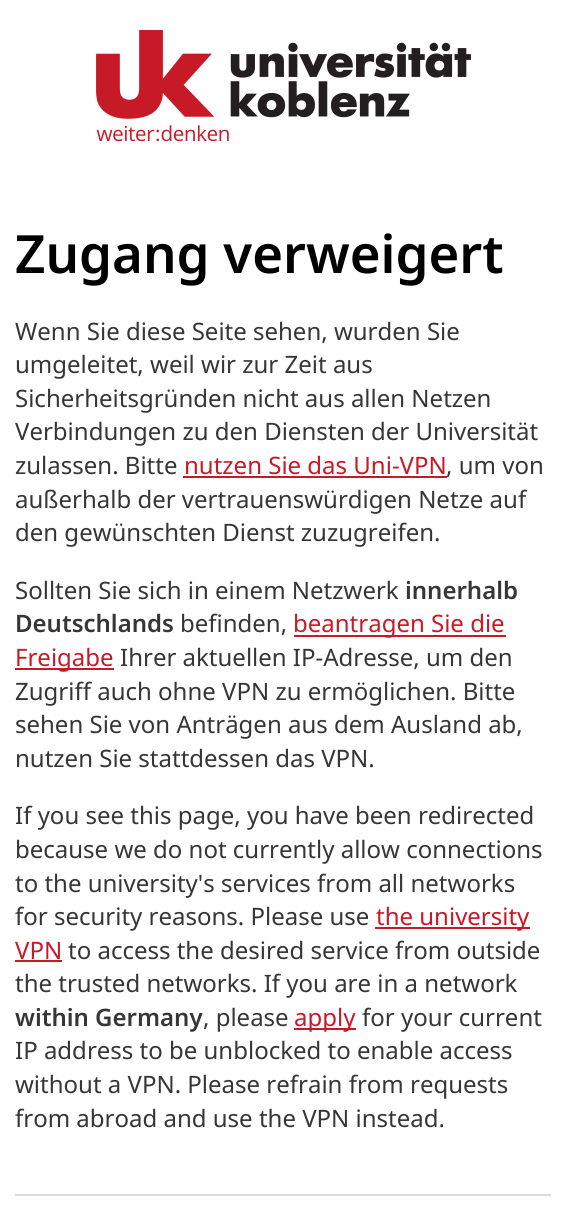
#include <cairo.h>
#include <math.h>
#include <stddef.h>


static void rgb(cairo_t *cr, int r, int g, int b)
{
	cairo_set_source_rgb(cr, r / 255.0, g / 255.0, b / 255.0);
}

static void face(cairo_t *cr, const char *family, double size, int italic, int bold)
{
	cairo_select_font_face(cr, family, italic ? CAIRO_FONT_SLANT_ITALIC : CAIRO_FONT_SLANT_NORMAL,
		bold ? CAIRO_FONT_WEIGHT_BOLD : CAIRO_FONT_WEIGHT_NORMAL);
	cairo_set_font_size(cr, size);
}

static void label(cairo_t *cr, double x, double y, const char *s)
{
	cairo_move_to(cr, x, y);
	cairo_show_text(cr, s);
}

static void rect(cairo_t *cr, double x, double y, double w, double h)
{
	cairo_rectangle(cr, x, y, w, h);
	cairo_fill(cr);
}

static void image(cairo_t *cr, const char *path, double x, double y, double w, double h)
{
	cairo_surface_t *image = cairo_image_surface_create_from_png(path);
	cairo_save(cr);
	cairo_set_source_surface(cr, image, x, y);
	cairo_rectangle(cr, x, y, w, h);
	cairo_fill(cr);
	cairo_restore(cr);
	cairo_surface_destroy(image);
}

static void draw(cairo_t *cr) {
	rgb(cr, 255, 255, 255);
	cairo_paint(cr);
	image(cr, "image0.png", 96, 30, 375, 111);
	face(cr, "Noto Sans SemiBold", 52.75, 0, 0);
	rgb(cr, 0, 0, 0);
	label(cr, 15, 273, "Zugang verweigert");
	face(cr, "Noto Sans", 24, 0, 0);
	rgb(cr, 54, 54, 54);
	label(cr, 15, 340, "Wenn Sie diese Seite sehen, wurden Sie");
	label(cr, 15, 373, "umgeleitet, weil wir zur Zeit aus");
	label(cr, 15, 407, "Sicherheitsgründen nicht aus allen Netzen");
	label(cr, 15, 440, "Verbindungen zu den Diensten der Universität");
	label(cr, 15, 474, "zulassen. Bitte");
	rgb(cr, 198, 26, 39);
	label(cr, 184, 474, "nutzen Sie das Uni-VPN");
	rect(cr, 183, 476, 264, 2);
	rgb(cr, 54, 54, 54);
	label(cr, 446, 474, ", um von");
	label(cr, 15, 508, "außerhalb der vertrauenswürdigen Netze auf");
	label(cr, 15, 541, "den gewünschten Dienst zuzugreifen.");
	label(cr, 15, 599, "Sollten Sie sich in einem Netzwerk");
	face(cr, "Noto Sans SemiBold", 24, 0, 0);
	label(cr, 405, 599, "innerhalb");
	label(cr, 15, 632, "Deutschlands");
	face(cr, "Noto Sans", 24, 0, 0);
	label(cr, 180, 632, "befinden,");
	rgb(cr, 198, 26, 39);
	rect(cr, 294, 635, 212, 2);
	label(cr, 293, 632, "beantragen Sie die");
	rect(cr, 15, 668, 99, 2);
	label(cr, 15, 666, "Freigabe");
	rgb(cr, 54, 54, 54);
	label(cr, 120, 666, "Ihrer aktuellen IP-Adresse, um den");
	label(cr, 15, 700, "Zugriff auch ohne VPN zu ermöglichen. Bitte");
	label(cr, 15, 733, "sehen Sie von Anträgen aus dem Ausland ab,");
	label(cr, 15, 767, "nutzen Sie stattdessen das VPN.");
	label(cr, 15, 824, "If you see this page, you have been redirected");
	label(cr, 15, 858, "because we do not currently allow connections");
	label(cr, 15, 892, "to the university's services from all networks");
	label(cr, 15, 925, "for security reasons. Please use");
	rgb(cr, 198, 26, 39);
	rect(cr, 375, 927, 155, 2);
	label(cr, 376, 925, "the university");
	label(cr, 15, 959, "VPN");
	rect(cr, 15, 960, 47, 2);
	rgb(cr, 54, 54, 54);
	label(cr, 68, 959, "to access the desired service from outside");
	label(cr, 15, 992, "the trusted networks. If you are in a network");
	face(cr, "Noto Sans SemiBold", 24, 0, 0);
	label(cr, 15, 1026, "within Germany");
	face(cr, "Noto Sans", 24, 0, 0);
	label(cr, 203, 1026, ", please");
	rgb(cr, 198, 26, 39);
	rect(cr, 294, 1028, 62, 2);
	label(cr, 294, 1026, "apply");
	rgb(cr, 54, 54, 54);
	label(cr, 362, 1026, "for your current");
	label(cr, 15, 1059, "IP address to be unblocked to enable access");
	label(cr, 15, 1093, "without a VPN. Please refrain from requests");
	label(cr, 15, 1127, "from abroad and use the VPN instead.");
	rgb(cr, 219, 219, 219);
	rect(cr, 15, 1194, 536, 2);
}

int main(void) {
	cairo_surface_t *surface = cairo_image_surface_create(CAIRO_FORMAT_RGB24, 565, 1224);
	cairo_t *cr = cairo_create(surface);
	cairo_font_options_t *options = cairo_font_options_create();
	cairo_font_options_set_hint_metrics(options, CAIRO_HINT_METRICS_OFF);
	cairo_font_options_set_hint_style(options, CAIRO_HINT_STYLE_NONE);
	cairo_set_font_options(cr, options);
	cairo_set_miter_limit(cr, 4);
	draw(cr);
	cairo_surface_write_to_png(surface, "render.png");
	cairo_font_options_destroy(options);
	cairo_destroy(cr);
	cairo_surface_destroy(surface);
	return 0;
}
